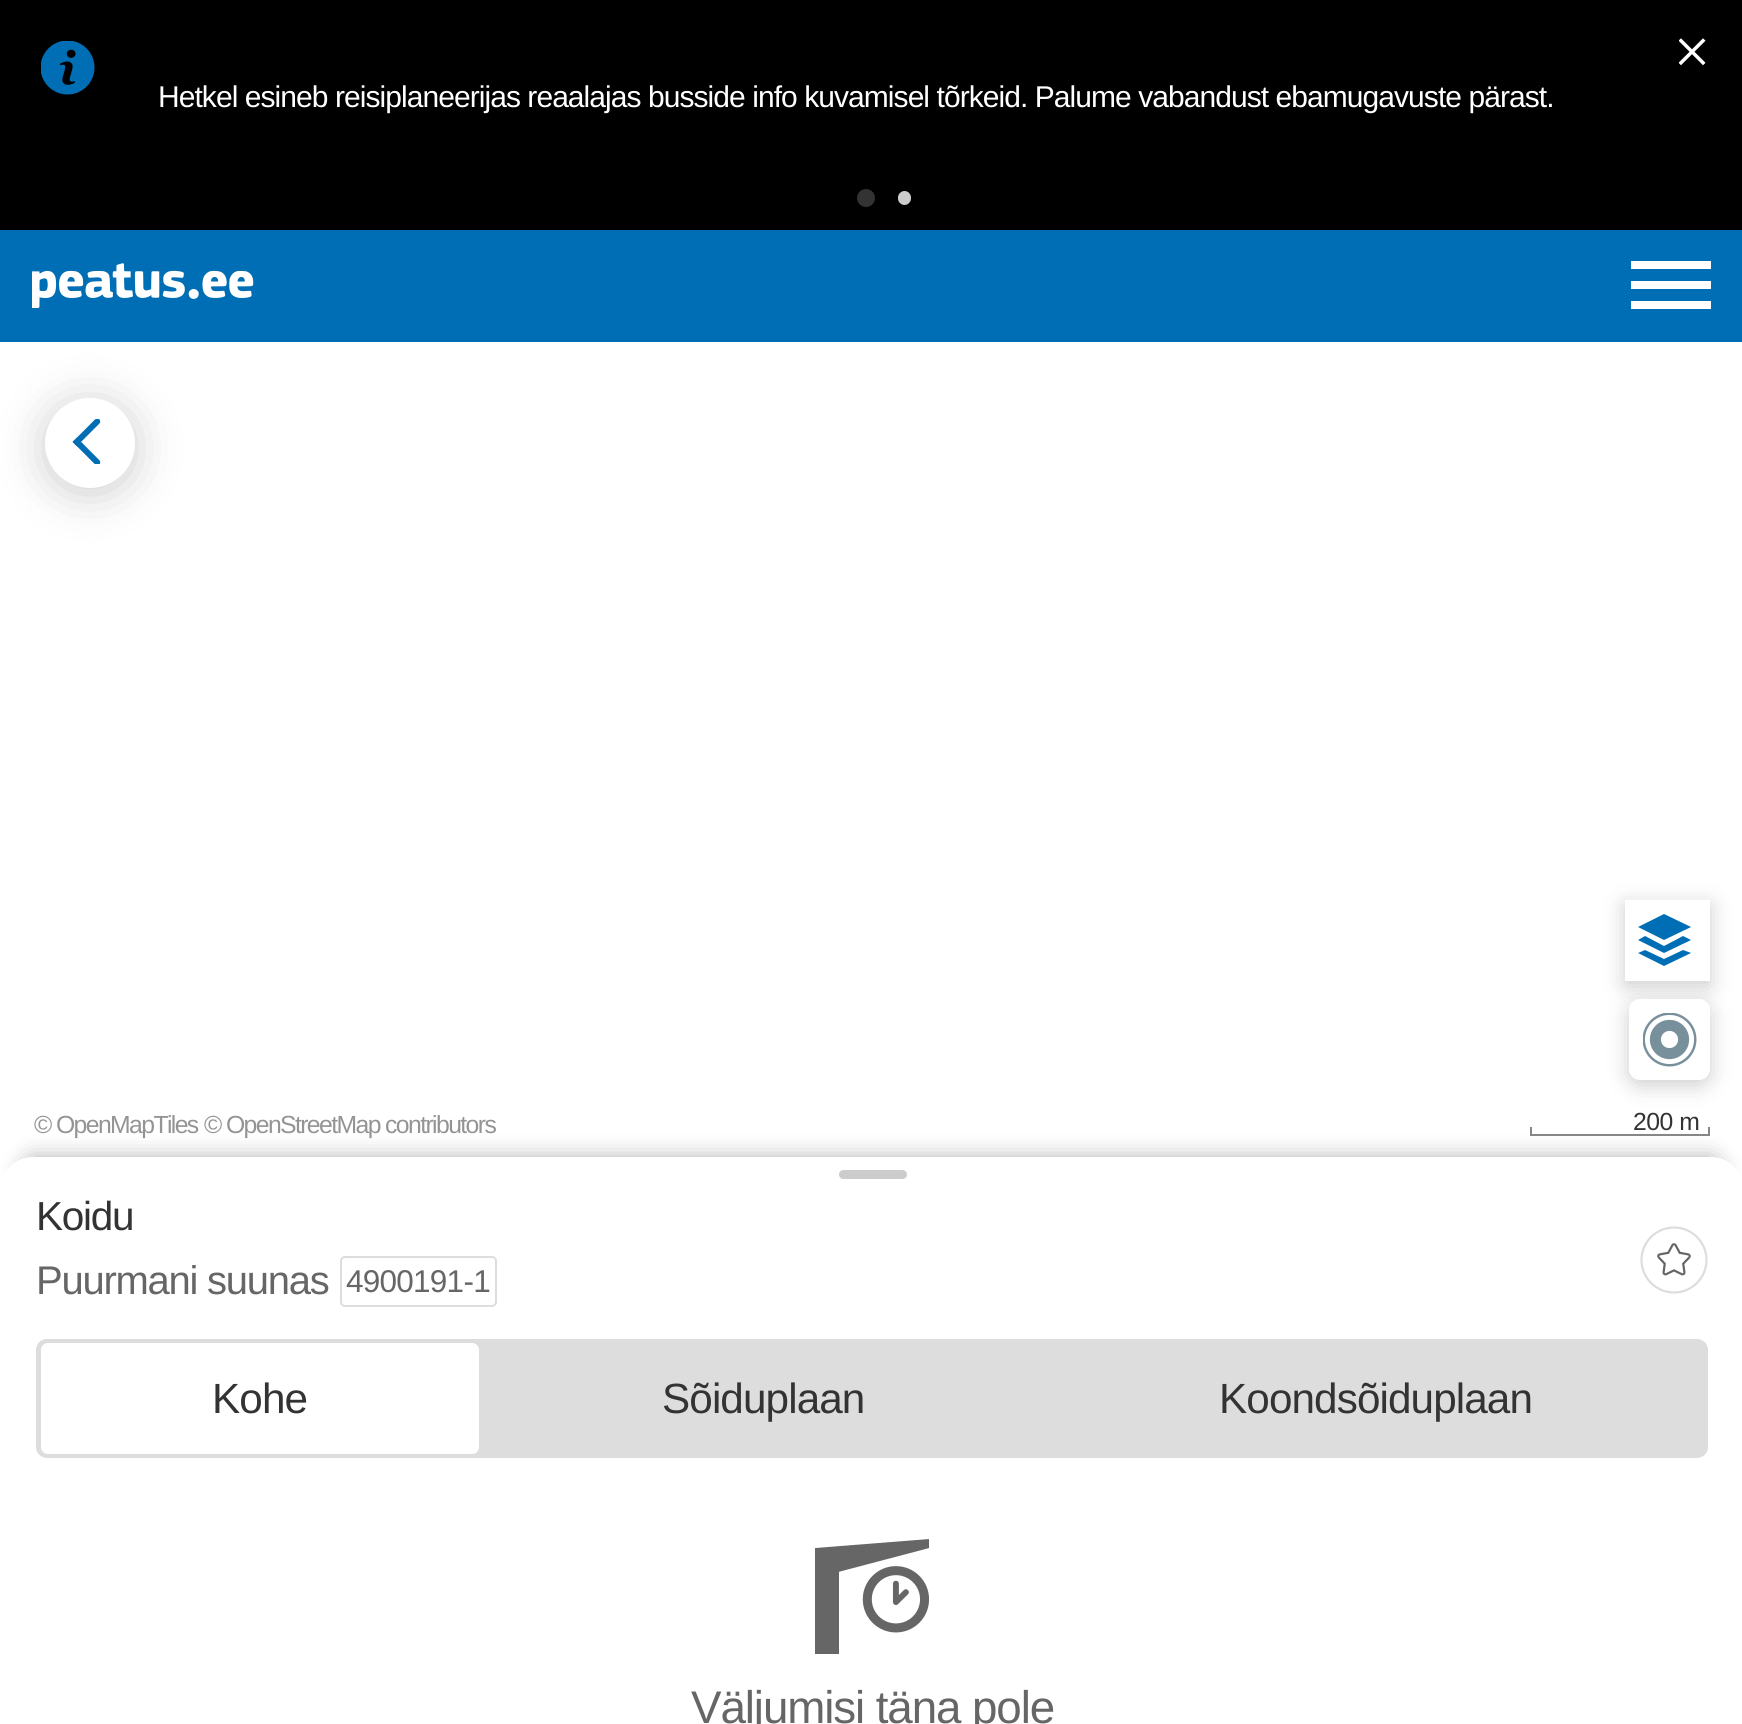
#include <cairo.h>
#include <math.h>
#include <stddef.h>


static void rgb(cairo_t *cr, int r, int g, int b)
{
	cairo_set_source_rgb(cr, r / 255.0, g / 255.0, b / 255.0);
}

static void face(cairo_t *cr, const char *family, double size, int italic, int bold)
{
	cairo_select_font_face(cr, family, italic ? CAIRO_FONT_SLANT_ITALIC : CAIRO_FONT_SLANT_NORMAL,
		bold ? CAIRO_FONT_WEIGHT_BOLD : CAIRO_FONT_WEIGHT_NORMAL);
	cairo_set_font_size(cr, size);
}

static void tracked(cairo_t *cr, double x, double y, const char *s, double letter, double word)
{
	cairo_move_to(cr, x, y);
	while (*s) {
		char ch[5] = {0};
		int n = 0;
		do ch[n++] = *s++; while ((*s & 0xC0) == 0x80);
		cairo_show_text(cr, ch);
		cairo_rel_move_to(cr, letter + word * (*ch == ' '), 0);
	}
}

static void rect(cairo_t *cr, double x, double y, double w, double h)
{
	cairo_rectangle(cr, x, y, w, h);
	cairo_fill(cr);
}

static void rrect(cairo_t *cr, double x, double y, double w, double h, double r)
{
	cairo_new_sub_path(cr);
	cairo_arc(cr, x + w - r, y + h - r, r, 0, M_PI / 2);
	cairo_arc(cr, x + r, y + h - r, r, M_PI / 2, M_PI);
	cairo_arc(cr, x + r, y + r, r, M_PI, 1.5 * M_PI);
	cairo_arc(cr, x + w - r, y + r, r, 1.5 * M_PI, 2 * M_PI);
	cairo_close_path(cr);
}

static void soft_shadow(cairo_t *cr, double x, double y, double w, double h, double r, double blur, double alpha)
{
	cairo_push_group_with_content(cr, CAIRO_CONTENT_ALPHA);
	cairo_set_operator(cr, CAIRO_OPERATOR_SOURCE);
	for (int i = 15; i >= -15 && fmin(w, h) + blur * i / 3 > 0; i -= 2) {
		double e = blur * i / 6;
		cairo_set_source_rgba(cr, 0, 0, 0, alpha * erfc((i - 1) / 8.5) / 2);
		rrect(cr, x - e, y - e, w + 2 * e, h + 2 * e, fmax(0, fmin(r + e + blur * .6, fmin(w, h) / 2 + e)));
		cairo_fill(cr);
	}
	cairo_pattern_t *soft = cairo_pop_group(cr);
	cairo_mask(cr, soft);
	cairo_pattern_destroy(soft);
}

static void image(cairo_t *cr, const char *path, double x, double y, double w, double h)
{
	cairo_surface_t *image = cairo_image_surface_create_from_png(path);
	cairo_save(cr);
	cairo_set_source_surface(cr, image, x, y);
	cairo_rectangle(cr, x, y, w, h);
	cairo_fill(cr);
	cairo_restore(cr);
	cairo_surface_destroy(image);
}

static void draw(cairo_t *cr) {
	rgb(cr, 255, 255, 255);
	cairo_paint(cr);
	rgb(cr, 0, 0, 0);
	rect(cr, 0, 0, 1742, 230);
	image(cr, "image0.png", 41, 41, 54, 54);
	image(cr, "image1.png", 1679, 38, 27, 27);
	face(cr, "Liberation Sans", 30, 0, 0);
	rgb(cr, 255, 255, 255);
	tracked(cr, 158, 107, "Hetkel esineb reisiplaneerijas reaalajas busside info kuvamisel tõrkeid. Palume vabandust ebamugavuste pärast.", -0.94, 0);
	rgb(cr, 51, 51, 51);
	cairo_new_path(cr);
	cairo_arc(cr, 866, 198, 6.5, 0, 2 * M_PI);
	cairo_fill_preserve(cr);
	cairo_set_line_width(cr, 5);
	cairo_stroke(cr);
	rgb(cr, 204, 204, 204);
	rrect(cr, 900.5, 193.5, 8, 9, 4);
	cairo_fill_preserve(cr);
	cairo_stroke(cr);
	rgb(cr, 0, 0, 0);
	soft_shadow(cr, 45, 403, 90, 90, 45, 22.5, 0.2);
	rgb(cr, 0, 110, 181);
	rect(cr, 0, 230, 1742, 112);
	image(cr, "image2.png", 32, 263, 222, 45);
	rgb(cr, 255, 255, 255);
	rect(cr, 1631, 261, 80, 8);
	rect(cr, 1631, 281, 80, 8);
	rect(cr, 1631, 301, 80, 8);
	cairo_arc(cr, 90, 443, 45, 0, 2 * M_PI);
	cairo_fill(cr);
	image(cr, "image3.png", 72, 419, 29, 45);
	cairo_save(cr);
	cairo_set_fill_rule(cr, CAIRO_FILL_RULE_EVEN_ODD);
	cairo_new_path(cr);
	cairo_move_to(cr, 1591, 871);
	cairo_line_to(cr, 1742, 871);
	cairo_line_to(cr, 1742, 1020);
	cairo_line_to(cr, 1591, 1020);
	cairo_close_path(cr);
	cairo_move_to(cr, 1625, 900);
	cairo_line_to(cr, 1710, 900);
	cairo_line_to(cr, 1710, 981);
	cairo_line_to(cr, 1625, 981);
	cairo_close_path(cr);
	cairo_clip(cr);
	rgb(cr, 0, 0, 0);
	soft_shadow(cr, 1625, 905, 85, 81, 0, 11, 0.2);
	cairo_restore(cr);
	rgb(cr, 0, 110, 181);
	cairo_new_path(cr);
	cairo_move_to(cr, 1691, 927);
	cairo_line_to(cr, 1664, 914);
	cairo_line_to(cr, 1638, 927);
	cairo_line_to(cr, 1664, 940);
	cairo_close_path(cr);
	cairo_fill(cr);
	cairo_new_path(cr);
	cairo_move_to(cr, 1664, 946);
	cairo_line_to(cr, 1645, 936);
	cairo_line_to(cr, 1638, 940);
	cairo_line_to(cr, 1664, 953);
	cairo_line_to(cr, 1691, 940);
	cairo_line_to(cr, 1683, 936);
	cairo_close_path(cr);
	cairo_fill(cr);
	cairo_new_path(cr);
	cairo_move_to(cr, 1664, 959);
	cairo_line_to(cr, 1645, 950);
	cairo_line_to(cr, 1638, 953);
	cairo_line_to(cr, 1664, 966);
	cairo_line_to(cr, 1691, 953);
	cairo_line_to(cr, 1683, 950);
	cairo_close_path(cr);
	cairo_fill(cr);
	rgb(cr, 0, 0, 0);
	soft_shadow(cr, 1629, 1004, 81, 81, 11, 11, 0.2);
	rgb(cr, 255, 255, 255);
	rrect(cr, 1629, 999, 81, 81, 11);
	cairo_fill(cr);
	image(cr, "image4.png", 1643, 1013, 54, 54);
	face(cr, "Liberation Sans", 24.75, 0, 0);
	rgb(cr, 148, 148, 148);
	tracked(cr, 34, 1133, "© OpenMapTiles", -1.6, 0);
	tracked(cr, 204, 1133, "© OpenStreetMap contributors", -1.6, 0);
	rgb(cr, 51, 51, 51);
	tracked(cr, 1633, 1130, "200 m", -0.5, 0);
	rgb(cr, 136, 136, 136);
	rect(cr, 1708, 1127, 2, 9);
	rect(cr, 1530, 1134, 180, 2);
	rect(cr, 1530, 1127, 2, 9);
	cairo_save(cr);
	cairo_set_fill_rule(cr, CAIRO_FILL_RULE_EVEN_ODD);
	cairo_new_path(cr);
	cairo_move_to(cr, 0, 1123);
	cairo_line_to(cr, 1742, 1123);
	cairo_line_to(cr, 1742, 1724);
	cairo_line_to(cr, 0, 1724);
	cairo_close_path(cr);
	cairo_move_to(cr, 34, 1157);
	cairo_line_to(cr, 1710, 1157);
	cairo_curve_to(cr, 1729, 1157, 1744, 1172, 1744, 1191);
	cairo_line_to(cr, 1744, 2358);
	cairo_line_to(cr, 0, 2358);
	cairo_line_to(cr, 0, 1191);
	cairo_curve_to(cr, 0, 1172, 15, 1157, 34, 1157);
	cairo_close_path(cr);
	cairo_clip(cr);
	rgb(cr, 0, 0, 0);
	soft_shadow(cr, 23, 1157, 1698, 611, 11, 11, 0.3);
	cairo_restore(cr);
	rgb(cr, 204, 204, 204);
	rrect(cr, 839, 1170, 68, 9, 4.5);
	cairo_fill(cr);
	face(cr, "Liberation Sans", 40.5, 0, 0);
	rgb(cr, 51, 51, 51);
	tracked(cr, 36, 1230, "Koidu", -1.25, 0);
	face(cr, "Liberation Sans", 40, 0, 0);
	rgb(cr, 102, 102, 102);
	tracked(cr, 36, 1294, "Puurmani suunas", -1.25, 0);
	rrect(cr, 341, 1257, 155, 49, 4);
	rgb(cr, 221, 221, 221);
	cairo_set_line_width(cr, 2);
	cairo_stroke(cr);
	face(cr, "Liberation Sans", 31.5, 0, 0);
	rgb(cr, 102, 102, 102);
	tracked(cr, 346, 1292, "4900191-1", -0.75, 0);
	image(cr, "image5.png", 1640, 1226, 68, 68);
	rgb(cr, 221, 221, 221);
	rrect(cr, 36, 1339, 1672, 119, 11);
	cairo_fill(cr);
	rgb(cr, 255, 255, 255);
	rrect(cr, 41, 1343, 438, 111, 7);
	cairo_fill(cr);
	face(cr, "Liberation Sans", 42.25, 0, 0);
	rgb(cr, 51, 51, 51);
	tracked(cr, 212, 1413, "Kohe", -0.9, 0);
	tracked(cr, 662, 1413, "Sõiduplaan", -0.9, 0);
	tracked(cr, 1219, 1413, "Koondsõiduplaan", -0.9, 0);
	image(cr, "image6.png", 815, 1539, 114, 115);
	face(cr, "Liberation Sans", 45.75, 0, 0);
	rgb(cr, 102, 102, 102);
	tracked(cr, 691, 1723, "Väljumisi täna pole", -1.1, 0);
}

int main(void) {
	cairo_surface_t *surface = cairo_image_surface_create(CAIRO_FORMAT_RGB24, 1742, 1724);
	cairo_t *cr = cairo_create(surface);
	cairo_font_options_t *options = cairo_font_options_create();
	cairo_font_options_set_hint_metrics(options, CAIRO_HINT_METRICS_OFF);
	cairo_font_options_set_hint_style(options, CAIRO_HINT_STYLE_NONE);
	cairo_set_font_options(cr, options);
	cairo_set_miter_limit(cr, 4);
	draw(cr);
	cairo_surface_write_to_png(surface, "render.png");
	cairo_font_options_destroy(options);
	cairo_destroy(cr);
	cairo_surface_destroy(surface);
	return 0;
}
